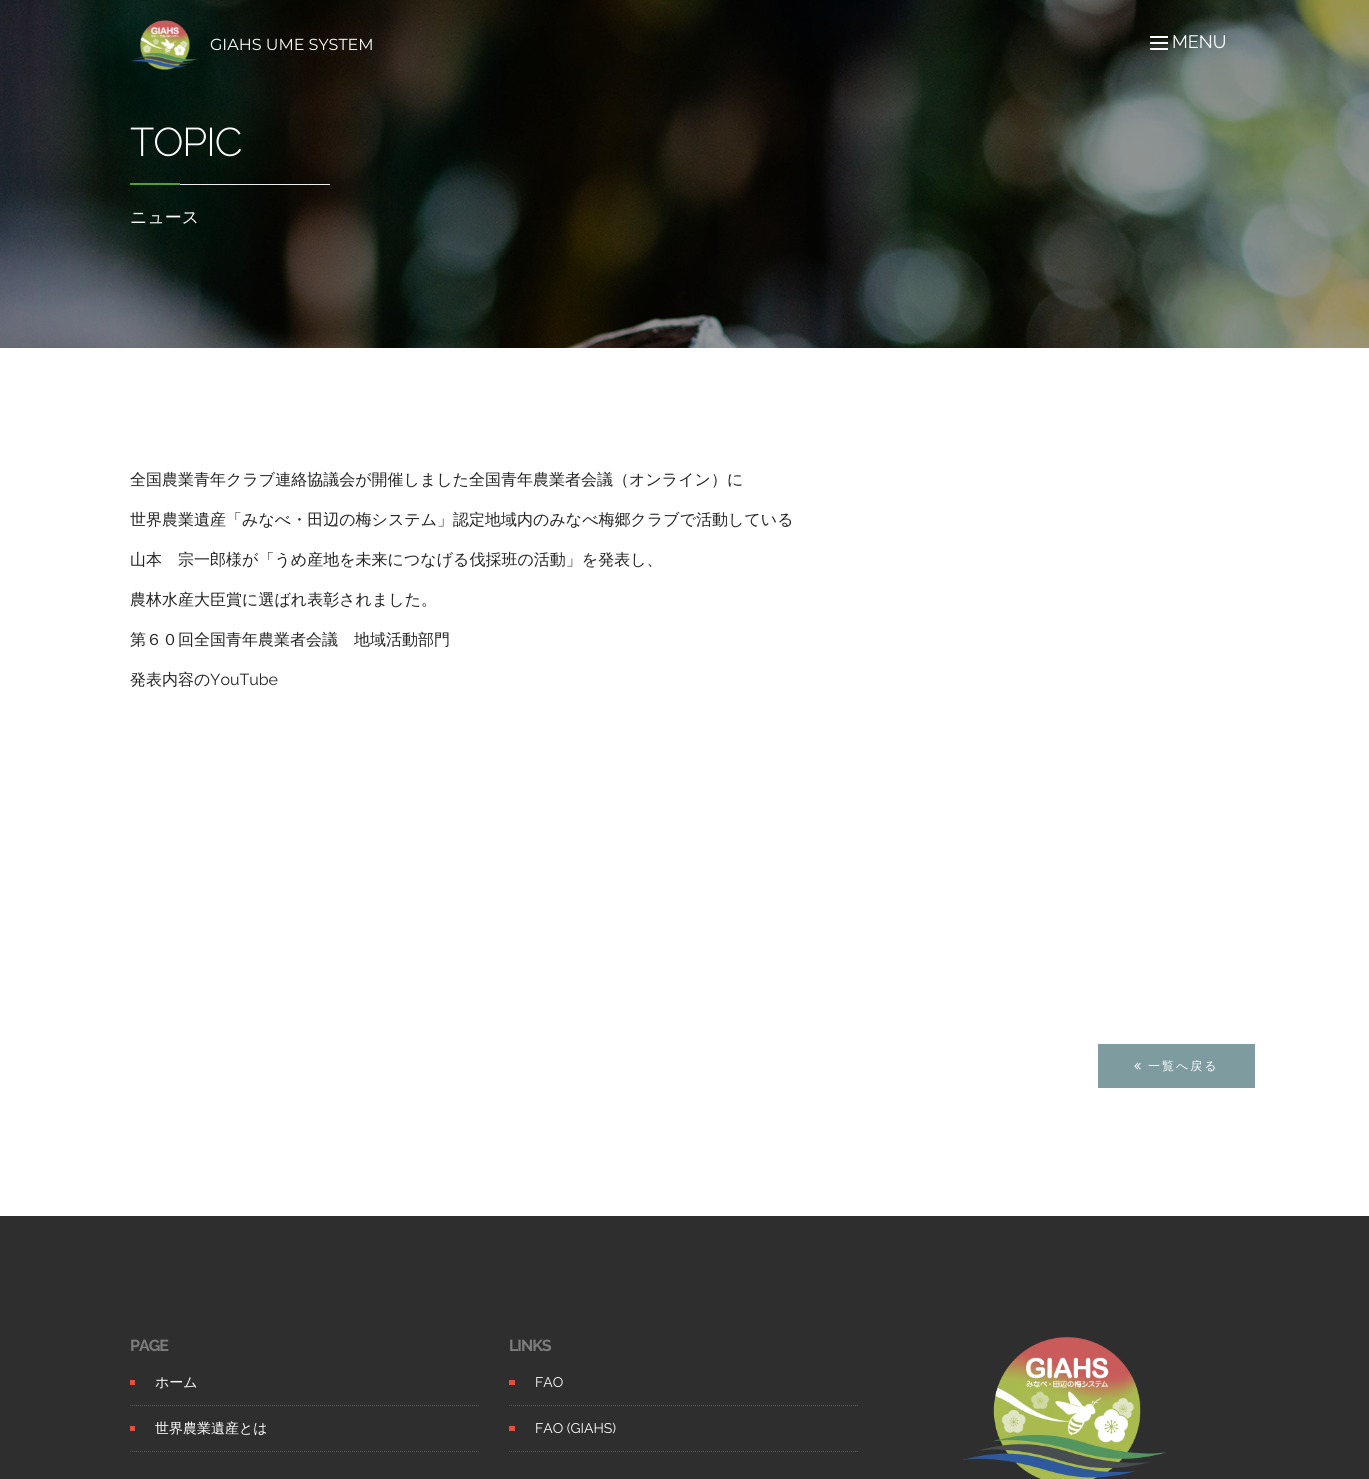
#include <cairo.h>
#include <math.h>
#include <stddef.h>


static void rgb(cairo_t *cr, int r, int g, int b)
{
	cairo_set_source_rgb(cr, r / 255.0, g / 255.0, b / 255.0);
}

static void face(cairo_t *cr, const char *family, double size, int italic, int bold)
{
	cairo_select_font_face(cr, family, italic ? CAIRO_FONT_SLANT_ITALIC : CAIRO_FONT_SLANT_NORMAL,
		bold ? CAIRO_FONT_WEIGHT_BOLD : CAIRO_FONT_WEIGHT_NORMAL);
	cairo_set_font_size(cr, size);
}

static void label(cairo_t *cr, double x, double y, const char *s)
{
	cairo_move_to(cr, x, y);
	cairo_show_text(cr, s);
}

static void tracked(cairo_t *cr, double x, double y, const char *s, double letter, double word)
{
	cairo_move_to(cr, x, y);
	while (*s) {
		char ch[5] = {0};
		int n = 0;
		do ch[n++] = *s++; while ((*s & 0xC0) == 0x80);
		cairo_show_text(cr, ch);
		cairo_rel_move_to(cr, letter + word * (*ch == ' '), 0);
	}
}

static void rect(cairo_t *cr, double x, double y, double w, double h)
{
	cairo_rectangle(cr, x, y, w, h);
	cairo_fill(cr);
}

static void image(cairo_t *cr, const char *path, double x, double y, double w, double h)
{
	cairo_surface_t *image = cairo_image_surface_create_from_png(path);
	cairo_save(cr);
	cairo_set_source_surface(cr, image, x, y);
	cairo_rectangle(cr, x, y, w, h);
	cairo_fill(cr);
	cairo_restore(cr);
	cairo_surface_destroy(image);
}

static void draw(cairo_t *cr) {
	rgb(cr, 255, 255, 255);
	cairo_paint(cr);
	image(cr, "image1.png", 0, 0, 1369, 348);
	image(cr, "image0.png", 130, 20, 68, 50);
	face(cr, "Montserrat", 16, 0, 0);
	rgb(cr, 255, 255, 255);
	label(cr, 210, 50, "GIAHS UME SYSTEM");
	rect(cr, 1150, 48, 18, 2);
	rect(cr, 1150, 42, 18, 2);
	rect(cr, 1150, 36, 18, 2);
	face(cr, "Raleway", 18, 0, 0);
	label(cr, 1172, 48, "MENU");
	face(cr, "Raleway Light", 40, 0, 0);
	tracked(cr, 130, 156, "TOPIC", -1, 0);
	rgb(cr, 238, 238, 238);
	rect(cr, 180, 184, 150, 1);
	rgb(cr, 94, 154, 40);
	rect(cr, 130, 183, 50, 2);
	face(cr, "WenQuanYi Zen Hei Medium", 17, 0, 0);
	rgb(cr, 255, 255, 255);
	label(cr, 130, 223, "ニュース");
	face(cr, "WenQuanYi Zen Hei Medium", 16, 0, 0);
	rgb(cr, 35, 35, 35);
	label(cr, 130, 485, "全国農業青年クラブ連絡協議会が開催しました全国青年農業者会議（オンライン）に");
	label(cr, 130, 525, "世界農業遺産「みなべ・田辺の梅システム」認定地域内のみなべ梅郷クラブで活動している");
	label(cr, 130, 565, "山本　宗一郎様が「うめ産地を未来につなげる伐採班の活動」を発表し、");
	label(cr, 130, 605, "農林水産大臣賞に選ばれ表彰されました。");
	label(cr, 130, 645, "第６０回全国青年農業者会議　地域活動部門");
	label(cr, 130, 685, "発表内容の");
	face(cr, "Raleway", 16, 0, 0);
	label(cr, 210, 685, "YouTube");
	rgb(cr, 126, 155, 159);
	rect(cr, 1098, 1044, 157, 44);
	image(cr, "image2.png", 1134, 1062, 7, 8);
	face(cr, "WenQuanYi Zen Hei Medium", 12, 0, 0);
	rgb(cr, 255, 255, 255);
	tracked(cr, 1148, 1070, "一覧へ戻る", 2, 0);
	rgb(cr, 46, 46, 46);
	rect(cr, 0, 1216, 1369, 263);
	face(cr, "Raleway", 16, 0, 1);
	rgb(cr, 124, 124, 124);
	tracked(cr, 130, 1351, "PAGE", -1, 0);
	cairo_new_path(cr);
	cairo_move_to(cr, 130, 1405.5);
	cairo_line_to(cr, 479, 1405.5);
	rgb(cr, 88, 88, 88);
	cairo_set_line_width(cr, 1);
	cairo_set_dash(cr, (double[]){1, 1}, 2, 0);
	cairo_stroke(cr);
	rgb(cr, 226, 80, 65);
	rect(cr, 130, 1380, 5, 5);
	face(cr, "WenQuanYi Zen Hei Medium", 14, 0, 0);
	rgb(cr, 255, 255, 255);
	label(cr, 155, 1387, "ホーム");
	cairo_new_path(cr);
	cairo_move_to(cr, 130, 1451.5);
	cairo_line_to(cr, 479, 1451.5);
	rgb(cr, 88, 88, 88);
	cairo_stroke(cr);
	rgb(cr, 226, 80, 65);
	rect(cr, 130, 1426, 5, 5);
	rgb(cr, 255, 255, 255);
	label(cr, 155, 1433, "世界農業遺産とは");
	face(cr, "Raleway", 16, 0, 1);
	rgb(cr, 124, 124, 124);
	tracked(cr, 509, 1351, "LINKS", -1, 0);
	cairo_new_path(cr);
	cairo_move_to(cr, 509, 1405.5);
	cairo_line_to(cr, 859, 1405.5);
	rgb(cr, 88, 88, 88);
	cairo_stroke(cr);
	rgb(cr, 226, 80, 65);
	rect(cr, 509, 1380, 6, 5);
	face(cr, "Raleway", 14, 0, 0);
	rgb(cr, 255, 255, 255);
	label(cr, 535, 1387, "FAO");
	cairo_new_path(cr);
	cairo_move_to(cr, 509, 1451.5);
	cairo_line_to(cr, 859, 1451.5);
	rgb(cr, 88, 88, 88);
	cairo_stroke(cr);
	rgb(cr, 226, 80, 65);
	rect(cr, 509, 1426, 6, 5);
	rgb(cr, 255, 255, 255);
	label(cr, 535, 1433, "FAO (GIAHS)");
	image(cr, "image3.png", 963, 1336, 203, 143);
}

int main(void) {
	cairo_surface_t *surface = cairo_image_surface_create(CAIRO_FORMAT_RGB24, 1369, 1479);
	cairo_t *cr = cairo_create(surface);
	cairo_font_options_t *options = cairo_font_options_create();
	cairo_font_options_set_hint_metrics(options, CAIRO_HINT_METRICS_OFF);
	cairo_font_options_set_hint_style(options, CAIRO_HINT_STYLE_NONE);
	cairo_set_font_options(cr, options);
	cairo_set_miter_limit(cr, 4);
	draw(cr);
	cairo_surface_write_to_png(surface, "render.png");
	cairo_font_options_destroy(options);
	cairo_destroy(cr);
	cairo_surface_destroy(surface);
	return 0;
}
